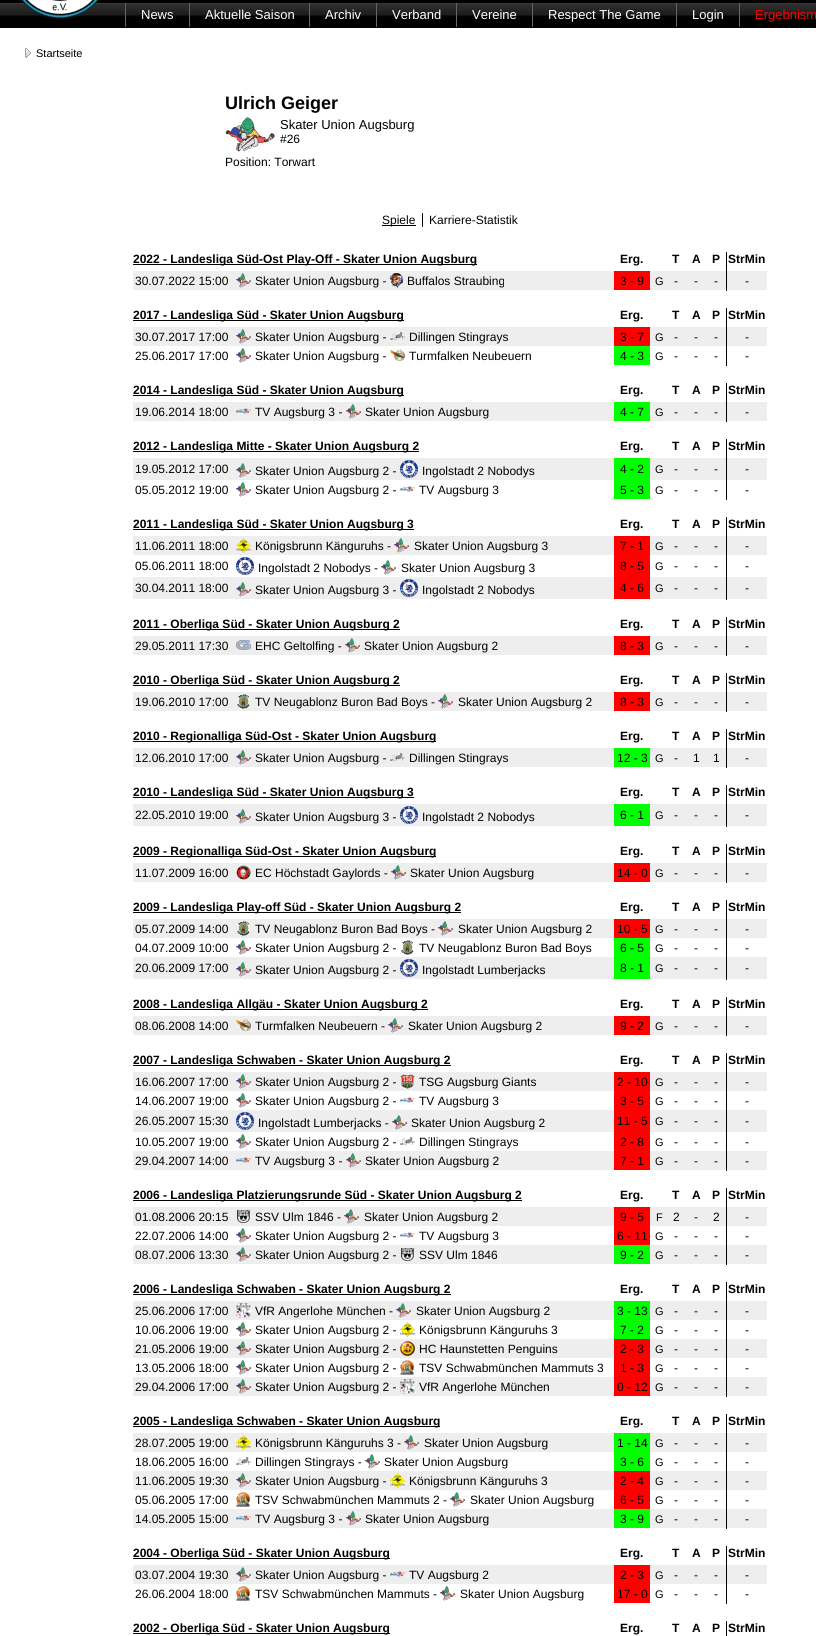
#include <cairo.h>
#include <math.h>
#include <stddef.h>


static void rgb(cairo_t *cr, int r, int g, int b)
{
	cairo_set_source_rgb(cr, r / 255.0, g / 255.0, b / 255.0);
}

static void face(cairo_t *cr, const char *family, double size, int italic, int bold)
{
	cairo_select_font_face(cr, family, italic ? CAIRO_FONT_SLANT_ITALIC : CAIRO_FONT_SLANT_NORMAL,
		bold ? CAIRO_FONT_WEIGHT_BOLD : CAIRO_FONT_WEIGHT_NORMAL);
	cairo_set_font_size(cr, size);
}

static void label(cairo_t *cr, double x, double y, const char *s)
{
	cairo_move_to(cr, x, y);
	cairo_show_text(cr, s);
}

static void rect(cairo_t *cr, double x, double y, double w, double h)
{
	cairo_rectangle(cr, x, y, w, h);
	cairo_fill(cr);
}

static void image(cairo_t *cr, const char *path, double x, double y, double w, double h)
{
	cairo_surface_t *image = cairo_image_surface_create_from_png(path);
	cairo_save(cr);
	cairo_set_source_surface(cr, image, x, y);
	cairo_rectangle(cr, x, y, w, h);
	cairo_fill(cr);
	cairo_restore(cr);
	cairo_surface_destroy(image);
}

static void draw(cairo_t *cr) {
	rgb(cr, 255, 255, 255);
	cairo_paint(cr);
	image(cr, "image0.png", 0, 0, 125, 28);
	image(cr, "image1.png", 21, 0, 78, 19);
	image(cr, "image2.png", 125, 0, 691, 28);
	rgb(cr, 102, 102, 102);
	rect(cr, 125, 3, 1, 24);
	face(cr, "Liberation Sans", 13, 0, 0);
	rgb(cr, 255, 255, 255);
	label(cr, 141, 19, "News");
	rgb(cr, 102, 102, 102);
	rect(cr, 189, 3, 1, 24);
	rgb(cr, 255, 255, 255);
	label(cr, 205, 19, "Aktuelle Saison");
	rgb(cr, 102, 102, 102);
	rect(cr, 309, 3, 1, 24);
	rgb(cr, 255, 255, 255);
	label(cr, 325, 19, "Archiv");
	rgb(cr, 102, 102, 102);
	rect(cr, 376, 3, 1, 24);
	rgb(cr, 255, 255, 255);
	label(cr, 392, 19, "Verband");
	rgb(cr, 102, 102, 102);
	rect(cr, 456, 3, 1, 24);
	rgb(cr, 255, 255, 255);
	label(cr, 472, 19, "Vereine");
	rgb(cr, 102, 102, 102);
	rect(cr, 532, 3, 1, 24);
	rgb(cr, 255, 255, 255);
	label(cr, 548, 19, "Respect The Game");
	rgb(cr, 102, 102, 102);
	rect(cr, 676, 3, 1, 24);
	rgb(cr, 255, 255, 255);
	label(cr, 692, 19, "Login");
	rgb(cr, 102, 102, 102);
	rect(cr, 739, 3, 1, 24);
	rgb(cr, 255, 0, 0);
	label(cr, 755, 19, "Ergebnism");
	image(cr, "image3.png", 25, 48, 6, 10);
	face(cr, "Liberation Sans", 11, 0, 0);
	rgb(cr, 0, 0, 0);
	label(cr, 36, 57, "Startseite");
	face(cr, "Liberation Sans", 18, 0, 1);
	label(cr, 225, 109, "Ulrich Geiger");
	image(cr, "image4.png", 225, 117, 50, 35);
	face(cr, "Liberation Sans", 13, 0, 0);
	label(cr, 280, 129, "Skater Union Augsburg");
	face(cr, "Liberation Sans", 12, 0, 0);
	label(cr, 280, 143, "#26");
	label(cr, 225, 166, "Position: Torwart");
	rect(cr, 382, 225, 34, 1);
	label(cr, 382, 224, "Spiele");
	label(cr, 429, 224, "Karriere-Statistik");
	rect(cr, 422, 213, 1, 14);
	rect(cr, 133, 264, 344, 1);
	face(cr, "Liberation Sans", 12, 0, 1);
	label(cr, 133, 263, "2022 - Landesliga Süd-Ost Play-Off - Skater Union Augsburg");
	label(cr, 620, 263, "Erg.");
	label(cr, 672, 263, "T");
	label(cr, 692, 263, "A");
	label(cr, 712, 263, "P");
	label(cr, 728, 263, "StrMin");
	rgb(cr, 238, 238, 238);
	rect(cr, 133, 271, 481, 19);
	face(cr, "Liberation Sans", 12, 0, 0);
	rgb(cr, 0, 0, 0);
	label(cr, 135, 285, "30.07.2022 15:00");
	image(cr, "image5.png", 236, 273, 15, 15);
	label(cr, 255, 285, "Skater Union Augsburg -");
	image(cr, "image6.png", 390, 273, 13, 15);
	label(cr, 407, 285, "Buffalos Straubing");
	rgb(cr, 255, 0, 0);
	rect(cr, 614, 271, 36, 19);
	rgb(cr, 0, 0, 0);
	label(cr, 620, 285, "3 - 9");
	rgb(cr, 238, 238, 238);
	rect(cr, 650, 271, 76, 19);
	face(cr, "Liberation Sans", 11, 0, 0);
	rgb(cr, 0, 0, 0);
	label(cr, 655, 285, "G");
	face(cr, "Liberation Sans", 12, 0, 0);
	label(cr, 674, 285, "-");
	label(cr, 694, 285, "-");
	rect(cr, 726, 252, 1, 39);
	label(cr, 714, 285, "-");
	rgb(cr, 238, 238, 238);
	rect(cr, 727, 271, 40, 19);
	rgb(cr, 0, 0, 0);
	label(cr, 745, 285, "-");
	rect(cr, 133, 320, 271, 1);
	face(cr, "Liberation Sans", 12, 0, 1);
	label(cr, 133, 319, "2017 - Landesliga Süd - Skater Union Augsburg");
	label(cr, 620, 319, "Erg.");
	label(cr, 672, 319, "T");
	label(cr, 692, 319, "A");
	label(cr, 712, 319, "P");
	label(cr, 728, 319, "StrMin");
	rgb(cr, 238, 238, 238);
	rect(cr, 133, 327, 481, 19);
	face(cr, "Liberation Sans", 12, 0, 0);
	rgb(cr, 0, 0, 0);
	label(cr, 135, 341, "30.07.2017 17:00");
	image(cr, "image5.png", 236, 329, 15, 15);
	label(cr, 255, 341, "Skater Union Augsburg -");
	image(cr, "image7.png", 390, 332, 15, 8);
	label(cr, 409, 341, "Dillingen Stingrays");
	rgb(cr, 255, 0, 0);
	rect(cr, 614, 327, 36, 19);
	rgb(cr, 0, 0, 0);
	label(cr, 620, 341, "3 - 7");
	rgb(cr, 238, 238, 238);
	rect(cr, 650, 327, 76, 19);
	face(cr, "Liberation Sans", 11, 0, 0);
	rgb(cr, 0, 0, 0);
	label(cr, 655, 341, "G");
	face(cr, "Liberation Sans", 12, 0, 0);
	label(cr, 674, 341, "-");
	label(cr, 694, 341, "-");
	label(cr, 714, 341, "-");
	rgb(cr, 238, 238, 238);
	rect(cr, 727, 327, 40, 19);
	rgb(cr, 0, 0, 0);
	label(cr, 745, 341, "-");
	label(cr, 135, 360, "25.06.2017 17:00");
	image(cr, "image8.png", 236, 348, 15, 15);
	label(cr, 255, 360, "Skater Union Augsburg -");
	image(cr, "image9.png", 390, 349, 15, 12);
	label(cr, 409, 360, "Turmfalken Neubeuern");
	rgb(cr, 0, 255, 0);
	rect(cr, 614, 346, 36, 19);
	rgb(cr, 0, 0, 0);
	label(cr, 620, 360, "4 - 3");
	face(cr, "Liberation Sans", 11, 0, 0);
	label(cr, 655, 360, "G");
	face(cr, "Liberation Sans", 12, 0, 0);
	label(cr, 674, 360, "-");
	label(cr, 694, 360, "-");
	rect(cr, 726, 308, 1, 58);
	label(cr, 714, 360, "-");
	label(cr, 745, 360, "-");
	rect(cr, 133, 395, 271, 1);
	face(cr, "Liberation Sans", 12, 0, 1);
	label(cr, 133, 394, "2014 - Landesliga Süd - Skater Union Augsburg");
	label(cr, 620, 394, "Erg.");
	label(cr, 672, 394, "T");
	label(cr, 692, 394, "A");
	label(cr, 712, 394, "P");
	label(cr, 728, 394, "StrMin");
	rgb(cr, 238, 238, 238);
	rect(cr, 133, 402, 481, 19);
	face(cr, "Liberation Sans", 12, 0, 0);
	rgb(cr, 0, 0, 0);
	label(cr, 135, 416, "19.06.2014 18:00");
	image(cr, "image10.png", 236, 408, 15, 6);
	label(cr, 255, 416, "TV Augsburg 3 -");
	image(cr, "image5.png", 346, 404, 15, 15);
	label(cr, 365, 416, "Skater Union Augsburg");
	rgb(cr, 0, 255, 0);
	rect(cr, 614, 402, 36, 19);
	rgb(cr, 0, 0, 0);
	label(cr, 620, 416, "4 - 7");
	rgb(cr, 238, 238, 238);
	rect(cr, 650, 402, 76, 19);
	face(cr, "Liberation Sans", 11, 0, 0);
	rgb(cr, 0, 0, 0);
	label(cr, 655, 416, "G");
	face(cr, "Liberation Sans", 12, 0, 0);
	label(cr, 674, 416, "-");
	label(cr, 694, 416, "-");
	rect(cr, 726, 383, 1, 39);
	label(cr, 714, 416, "-");
	rgb(cr, 238, 238, 238);
	rect(cr, 727, 402, 40, 19);
	rgb(cr, 0, 0, 0);
	label(cr, 745, 416, "-");
	rect(cr, 133, 451, 286, 1);
	face(cr, "Liberation Sans", 12, 0, 1);
	label(cr, 133, 450, "2012 - Landesliga Mitte - Skater Union Augsburg 2");
	label(cr, 620, 450, "Erg.");
	label(cr, 672, 450, "T");
	label(cr, 692, 450, "A");
	label(cr, 712, 450, "P");
	label(cr, 728, 450, "StrMin");
	rgb(cr, 238, 238, 238);
	rect(cr, 133, 458, 481, 22);
	face(cr, "Liberation Sans", 12, 0, 0);
	rgb(cr, 0, 0, 0);
	label(cr, 135, 473, "19.05.2012 17:00");
	image(cr, "image5.png", 236, 463, 15, 15);
	label(cr, 255, 475, "Skater Union Augsburg 2 -");
	image(cr, "image11.png", 400, 460, 18, 18);
	label(cr, 422, 475, "Ingolstadt 2 Nobodys");
	rgb(cr, 0, 255, 0);
	rect(cr, 614, 458, 36, 41);
	rgb(cr, 0, 0, 0);
	label(cr, 620, 473, "4 - 2");
	rgb(cr, 238, 238, 238);
	rect(cr, 650, 458, 76, 22);
	face(cr, "Liberation Sans", 11, 0, 0);
	rgb(cr, 0, 0, 0);
	label(cr, 655, 473, "G");
	face(cr, "Liberation Sans", 12, 0, 0);
	label(cr, 674, 473, "-");
	label(cr, 694, 473, "-");
	label(cr, 714, 473, "-");
	rgb(cr, 238, 238, 238);
	rect(cr, 727, 458, 40, 22);
	rgb(cr, 0, 0, 0);
	label(cr, 745, 473, "-");
	label(cr, 135, 494, "05.05.2012 19:00");
	image(cr, "image8.png", 236, 482, 15, 15);
	label(cr, 255, 494, "Skater Union Augsburg 2 -");
	image(cr, "image12.png", 400, 486, 15, 6);
	label(cr, 419, 494, "TV Augsburg 3");
	label(cr, 620, 494, "5 - 3");
	face(cr, "Liberation Sans", 11, 0, 0);
	label(cr, 655, 494, "G");
	face(cr, "Liberation Sans", 12, 0, 0);
	label(cr, 674, 494, "-");
	label(cr, 694, 494, "-");
	rect(cr, 726, 439, 1, 61);
	label(cr, 714, 494, "-");
	label(cr, 745, 494, "-");
	rect(cr, 133, 529, 281, 1);
	face(cr, "Liberation Sans", 12, 0, 1);
	label(cr, 133, 528, "2011 - Landesliga Süd - Skater Union Augsburg 3");
	label(cr, 620, 528, "Erg.");
	label(cr, 672, 528, "T");
	label(cr, 692, 528, "A");
	label(cr, 712, 528, "P");
	label(cr, 728, 528, "StrMin");
	rgb(cr, 238, 238, 238);
	rect(cr, 133, 536, 481, 19);
	face(cr, "Liberation Sans", 12, 0, 0);
	rgb(cr, 0, 0, 0);
	label(cr, 135, 550, "11.06.2011 18:00");
	image(cr, "image13.png", 236, 538, 15, 15);
	label(cr, 255, 550, "Königsbrunn Känguruhs -");
	image(cr, "image5.png", 394, 538, 15, 15);
	label(cr, 414, 550, "Skater Union Augsburg 3");
	rgb(cr, 255, 0, 0);
	rect(cr, 614, 536, 36, 63);
	rgb(cr, 0, 0, 0);
	label(cr, 620, 550, "7 - 1");
	rgb(cr, 238, 238, 238);
	rect(cr, 650, 536, 76, 19);
	face(cr, "Liberation Sans", 11, 0, 0);
	rgb(cr, 0, 0, 0);
	label(cr, 655, 550, "G");
	face(cr, "Liberation Sans", 12, 0, 0);
	label(cr, 674, 550, "-");
	label(cr, 694, 550, "-");
	label(cr, 714, 550, "-");
	rgb(cr, 238, 238, 238);
	rect(cr, 727, 536, 40, 19);
	rgb(cr, 0, 0, 0);
	label(cr, 745, 550, "-");
	label(cr, 135, 570, "05.06.2011 18:00");
	image(cr, "image14.png", 236, 557, 18, 18);
	label(cr, 258, 572, "Ingolstadt 2 Nobodys -");
	image(cr, "image8.png", 381, 560, 15, 15);
	label(cr, 401, 572, "Skater Union Augsburg 3");
	label(cr, 620, 570, "8 - 5");
	face(cr, "Liberation Sans", 11, 0, 0);
	label(cr, 655, 570, "G");
	face(cr, "Liberation Sans", 12, 0, 0);
	label(cr, 674, 570, "-");
	label(cr, 694, 570, "-");
	label(cr, 714, 570, "-");
	label(cr, 745, 570, "-");
	rgb(cr, 238, 238, 238);
	rect(cr, 133, 577, 481, 22);
	rgb(cr, 0, 0, 0);
	label(cr, 135, 592, "30.04.2011 18:00");
	image(cr, "image5.png", 236, 582, 15, 15);
	label(cr, 255, 594, "Skater Union Augsburg 3 -");
	image(cr, "image11.png", 400, 579, 18, 18);
	label(cr, 422, 594, "Ingolstadt 2 Nobodys");
	label(cr, 620, 592, "4 - 6");
	rgb(cr, 238, 238, 238);
	rect(cr, 650, 577, 76, 22);
	face(cr, "Liberation Sans", 11, 0, 0);
	rgb(cr, 0, 0, 0);
	label(cr, 655, 592, "G");
	face(cr, "Liberation Sans", 12, 0, 0);
	label(cr, 674, 592, "-");
	label(cr, 694, 592, "-");
	rect(cr, 726, 517, 1, 83);
	label(cr, 714, 592, "-");
	rgb(cr, 238, 238, 238);
	rect(cr, 727, 577, 40, 22);
	rgb(cr, 0, 0, 0);
	label(cr, 745, 592, "-");
	rect(cr, 133, 629, 267, 1);
	face(cr, "Liberation Sans", 12, 0, 1);
	label(cr, 133, 628, "2011 - Oberliga Süd - Skater Union Augsburg 2");
	label(cr, 620, 628, "Erg.");
	label(cr, 672, 628, "T");
	label(cr, 692, 628, "A");
	label(cr, 712, 628, "P");
	label(cr, 728, 628, "StrMin");
	rgb(cr, 238, 238, 238);
	rect(cr, 133, 636, 481, 19);
	face(cr, "Liberation Sans", 12, 0, 0);
	rgb(cr, 0, 0, 0);
	label(cr, 135, 650, "29.05.2011 17:30");
	image(cr, "image15.png", 236, 640, 15, 10);
	label(cr, 255, 650, "EHC Geltolfing -");
	image(cr, "image5.png", 345, 638, 15, 15);
	label(cr, 364, 650, "Skater Union Augsburg 2");
	rgb(cr, 255, 0, 0);
	rect(cr, 614, 636, 36, 19);
	rgb(cr, 0, 0, 0);
	label(cr, 620, 650, "8 - 3");
	rgb(cr, 238, 238, 238);
	rect(cr, 650, 636, 76, 19);
	face(cr, "Liberation Sans", 11, 0, 0);
	rgb(cr, 0, 0, 0);
	label(cr, 655, 650, "G");
	face(cr, "Liberation Sans", 12, 0, 0);
	label(cr, 674, 650, "-");
	label(cr, 694, 650, "-");
	rect(cr, 726, 617, 1, 39);
	label(cr, 714, 650, "-");
	rgb(cr, 238, 238, 238);
	rect(cr, 727, 636, 40, 19);
	rgb(cr, 0, 0, 0);
	label(cr, 745, 650, "-");
	rect(cr, 133, 685, 267, 1);
	face(cr, "Liberation Sans", 12, 0, 1);
	label(cr, 133, 684, "2010 - Oberliga Süd - Skater Union Augsburg 2");
	label(cr, 620, 684, "Erg.");
	label(cr, 672, 684, "T");
	label(cr, 692, 684, "A");
	label(cr, 712, 684, "P");
	label(cr, 728, 684, "StrMin");
	rgb(cr, 238, 238, 238);
	rect(cr, 133, 692, 481, 19);
	face(cr, "Liberation Sans", 12, 0, 0);
	rgb(cr, 0, 0, 0);
	label(cr, 135, 706, "19.06.2010 17:00");
	image(cr, "image16.png", 237, 694, 13, 15);
	label(cr, 255, 706, "TV Neugablonz Buron Bad Boys -");
	image(cr, "image5.png", 438, 694, 15, 15);
	label(cr, 458, 706, "Skater Union Augsburg 2");
	rgb(cr, 255, 0, 0);
	rect(cr, 614, 692, 36, 19);
	rgb(cr, 0, 0, 0);
	label(cr, 620, 706, "8 - 3");
	rgb(cr, 238, 238, 238);
	rect(cr, 650, 692, 76, 19);
	face(cr, "Liberation Sans", 11, 0, 0);
	rgb(cr, 0, 0, 0);
	label(cr, 655, 706, "G");
	face(cr, "Liberation Sans", 12, 0, 0);
	label(cr, 674, 706, "-");
	label(cr, 694, 706, "-");
	rect(cr, 726, 673, 1, 39);
	label(cr, 714, 706, "-");
	rgb(cr, 238, 238, 238);
	rect(cr, 727, 692, 40, 19);
	rgb(cr, 0, 0, 0);
	label(cr, 745, 706, "-");
	rect(cr, 133, 741, 303, 1);
	face(cr, "Liberation Sans", 12, 0, 1);
	label(cr, 133, 740, "2010 - Regionalliga Süd-Ost - Skater Union Augsburg");
	label(cr, 620, 740, "Erg.");
	label(cr, 672, 740, "T");
	label(cr, 692, 740, "A");
	label(cr, 712, 740, "P");
	label(cr, 728, 740, "StrMin");
	rgb(cr, 238, 238, 238);
	rect(cr, 133, 748, 481, 19);
	face(cr, "Liberation Sans", 12, 0, 0);
	rgb(cr, 0, 0, 0);
	label(cr, 135, 762, "12.06.2010 17:00");
	image(cr, "image5.png", 236, 750, 15, 15);
	label(cr, 255, 762, "Skater Union Augsburg -");
	image(cr, "image7.png", 390, 753, 15, 8);
	label(cr, 409, 762, "Dillingen Stingrays");
	rgb(cr, 0, 255, 0);
	rect(cr, 614, 748, 36, 19);
	rgb(cr, 0, 0, 0);
	label(cr, 617, 762, "12 - 3");
	rgb(cr, 238, 238, 238);
	rect(cr, 650, 748, 76, 19);
	face(cr, "Liberation Sans", 11, 0, 0);
	rgb(cr, 0, 0, 0);
	label(cr, 655, 762, "G");
	face(cr, "Liberation Sans", 12, 0, 0);
	label(cr, 674, 762, "-");
	label(cr, 693, 762, "1");
	rect(cr, 726, 729, 1, 39);
	label(cr, 713, 762, "1");
	rgb(cr, 238, 238, 238);
	rect(cr, 727, 748, 40, 19);
	rgb(cr, 0, 0, 0);
	label(cr, 745, 762, "-");
	rect(cr, 133, 797, 281, 1);
	face(cr, "Liberation Sans", 12, 0, 1);
	label(cr, 133, 796, "2010 - Landesliga Süd - Skater Union Augsburg 3");
	label(cr, 620, 796, "Erg.");
	label(cr, 672, 796, "T");
	label(cr, 692, 796, "A");
	label(cr, 712, 796, "P");
	label(cr, 728, 796, "StrMin");
	rgb(cr, 238, 238, 238);
	rect(cr, 133, 804, 481, 22);
	face(cr, "Liberation Sans", 12, 0, 0);
	rgb(cr, 0, 0, 0);
	label(cr, 135, 819, "22.05.2010 19:00");
	image(cr, "image5.png", 236, 809, 15, 15);
	label(cr, 255, 821, "Skater Union Augsburg 3 -");
	image(cr, "image11.png", 400, 806, 18, 18);
	label(cr, 422, 821, "Ingolstadt 2 Nobodys");
	rgb(cr, 0, 255, 0);
	rect(cr, 614, 804, 36, 22);
	rgb(cr, 0, 0, 0);
	label(cr, 620, 819, "6 - 1");
	rgb(cr, 238, 238, 238);
	rect(cr, 650, 804, 76, 22);
	face(cr, "Liberation Sans", 11, 0, 0);
	rgb(cr, 0, 0, 0);
	label(cr, 655, 819, "G");
	face(cr, "Liberation Sans", 12, 0, 0);
	label(cr, 674, 819, "-");
	label(cr, 694, 819, "-");
	rect(cr, 726, 785, 1, 42);
	label(cr, 714, 819, "-");
	rgb(cr, 238, 238, 238);
	rect(cr, 727, 804, 40, 22);
	rgb(cr, 0, 0, 0);
	label(cr, 745, 819, "-");
	rect(cr, 133, 856, 303, 1);
	face(cr, "Liberation Sans", 12, 0, 1);
	label(cr, 133, 855, "2009 - Regionalliga Süd-Ost - Skater Union Augsburg");
	label(cr, 620, 855, "Erg.");
	label(cr, 672, 855, "T");
	label(cr, 692, 855, "A");
	label(cr, 712, 855, "P");
	label(cr, 728, 855, "StrMin");
	rgb(cr, 238, 238, 238);
	rect(cr, 133, 863, 481, 19);
	face(cr, "Liberation Sans", 12, 0, 0);
	rgb(cr, 0, 0, 0);
	label(cr, 135, 877, "11.07.2009 16:00");
	image(cr, "image17.png", 236, 865, 15, 15);
	label(cr, 255, 877, "EC Höchstadt Gaylords -");
	image(cr, "image5.png", 391, 865, 15, 15);
	label(cr, 410, 877, "Skater Union Augsburg");
	rgb(cr, 255, 0, 0);
	rect(cr, 614, 863, 36, 19);
	rgb(cr, 0, 0, 0);
	label(cr, 617, 877, "14 - 0");
	rgb(cr, 238, 238, 238);
	rect(cr, 650, 863, 76, 19);
	face(cr, "Liberation Sans", 11, 0, 0);
	rgb(cr, 0, 0, 0);
	label(cr, 655, 877, "G");
	face(cr, "Liberation Sans", 12, 0, 0);
	label(cr, 674, 877, "-");
	label(cr, 694, 877, "-");
	rect(cr, 726, 844, 1, 39);
	label(cr, 714, 877, "-");
	rgb(cr, 238, 238, 238);
	rect(cr, 727, 863, 40, 19);
	rgb(cr, 0, 0, 0);
	label(cr, 745, 877, "-");
	rect(cr, 133, 912, 328, 1);
	face(cr, "Liberation Sans", 12, 0, 1);
	label(cr, 133, 911, "2009 - Landesliga Play-off Süd - Skater Union Augsburg 2");
	label(cr, 620, 911, "Erg.");
	label(cr, 672, 911, "T");
	label(cr, 692, 911, "A");
	label(cr, 712, 911, "P");
	label(cr, 728, 911, "StrMin");
	rgb(cr, 238, 238, 238);
	rect(cr, 133, 919, 481, 19);
	face(cr, "Liberation Sans", 12, 0, 0);
	rgb(cr, 0, 0, 0);
	label(cr, 135, 933, "05.07.2009 14:00");
	image(cr, "image16.png", 237, 921, 13, 15);
	label(cr, 255, 933, "TV Neugablonz Buron Bad Boys -");
	image(cr, "image5.png", 438, 921, 15, 15);
	label(cr, 458, 933, "Skater Union Augsburg 2");
	rgb(cr, 255, 0, 0);
	rect(cr, 614, 919, 36, 19);
	rgb(cr, 0, 0, 0);
	label(cr, 617, 933, "10 - 5");
	rgb(cr, 238, 238, 238);
	rect(cr, 650, 919, 76, 19);
	face(cr, "Liberation Sans", 11, 0, 0);
	rgb(cr, 0, 0, 0);
	label(cr, 655, 933, "G");
	face(cr, "Liberation Sans", 12, 0, 0);
	label(cr, 674, 933, "-");
	label(cr, 694, 933, "-");
	label(cr, 714, 933, "-");
	rgb(cr, 238, 238, 238);
	rect(cr, 727, 919, 40, 19);
	rgb(cr, 0, 0, 0);
	label(cr, 745, 933, "-");
	label(cr, 135, 952, "04.07.2009 10:00");
	image(cr, "image8.png", 236, 940, 15, 15);
	label(cr, 255, 952, "Skater Union Augsburg 2 -");
	image(cr, "image18.png", 401, 940, 13, 15);
	label(cr, 419, 952, "TV Neugablonz Buron Bad Boys");
	rgb(cr, 0, 255, 0);
	rect(cr, 614, 938, 36, 41);
	rgb(cr, 0, 0, 0);
	label(cr, 620, 952, "6 - 5");
	face(cr, "Liberation Sans", 11, 0, 0);
	label(cr, 655, 952, "G");
	face(cr, "Liberation Sans", 12, 0, 0);
	label(cr, 674, 952, "-");
	label(cr, 694, 952, "-");
	label(cr, 714, 952, "-");
	label(cr, 745, 952, "-");
	rgb(cr, 238, 238, 238);
	rect(cr, 133, 957, 481, 22);
	rgb(cr, 0, 0, 0);
	label(cr, 135, 972, "20.06.2009 17:00");
	image(cr, "image5.png", 236, 962, 15, 15);
	label(cr, 255, 974, "Skater Union Augsburg 2 -");
	image(cr, "image11.png", 400, 959, 18, 18);
	label(cr, 422, 974, "Ingolstadt Lumberjacks");
	label(cr, 620, 972, "8 - 1");
	rgb(cr, 238, 238, 238);
	rect(cr, 650, 957, 76, 22);
	face(cr, "Liberation Sans", 11, 0, 0);
	rgb(cr, 0, 0, 0);
	label(cr, 655, 972, "G");
	face(cr, "Liberation Sans", 12, 0, 0);
	label(cr, 674, 972, "-");
	label(cr, 694, 972, "-");
	rect(cr, 726, 900, 1, 80);
	label(cr, 714, 972, "-");
	rgb(cr, 238, 238, 238);
	rect(cr, 727, 957, 40, 22);
	rgb(cr, 0, 0, 0);
	label(cr, 745, 972, "-");
	rect(cr, 133, 1009, 295, 1);
	face(cr, "Liberation Sans", 12, 0, 1);
	label(cr, 133, 1008, "2008 - Landesliga Allgäu - Skater Union Augsburg 2");
	label(cr, 620, 1008, "Erg.");
	label(cr, 672, 1008, "T");
	label(cr, 692, 1008, "A");
	label(cr, 712, 1008, "P");
	label(cr, 728, 1008, "StrMin");
	rgb(cr, 238, 238, 238);
	rect(cr, 133, 1016, 481, 19);
	face(cr, "Liberation Sans", 12, 0, 0);
	rgb(cr, 0, 0, 0);
	label(cr, 135, 1030, "08.06.2008 14:00");
	image(cr, "image19.png", 236, 1019, 15, 12);
	label(cr, 255, 1030, "Turmfalken Neubeuern -");
	image(cr, "image5.png", 388, 1018, 15, 15);
	label(cr, 408, 1030, "Skater Union Augsburg 2");
	rgb(cr, 255, 0, 0);
	rect(cr, 614, 1016, 36, 19);
	rgb(cr, 0, 0, 0);
	label(cr, 620, 1030, "9 - 2");
	rgb(cr, 238, 238, 238);
	rect(cr, 650, 1016, 76, 19);
	face(cr, "Liberation Sans", 11, 0, 0);
	rgb(cr, 0, 0, 0);
	label(cr, 655, 1030, "G");
	face(cr, "Liberation Sans", 12, 0, 0);
	label(cr, 674, 1030, "-");
	label(cr, 694, 1030, "-");
	rect(cr, 726, 997, 1, 39);
	label(cr, 714, 1030, "-");
	rgb(cr, 238, 238, 238);
	rect(cr, 727, 1016, 40, 19);
	rgb(cr, 0, 0, 0);
	label(cr, 745, 1030, "-");
	rect(cr, 133, 1065, 318, 1);
	face(cr, "Liberation Sans", 12, 0, 1);
	label(cr, 133, 1064, "2007 - Landesliga Schwaben - Skater Union Augsburg 2");
	label(cr, 620, 1064, "Erg.");
	label(cr, 672, 1064, "T");
	label(cr, 692, 1064, "A");
	label(cr, 712, 1064, "P");
	label(cr, 728, 1064, "StrMin");
	rgb(cr, 238, 238, 238);
	rect(cr, 133, 1072, 481, 19);
	face(cr, "Liberation Sans", 12, 0, 0);
	rgb(cr, 0, 0, 0);
	label(cr, 135, 1086, "16.06.2007 17:00");
	image(cr, "image5.png", 236, 1074, 15, 15);
	label(cr, 255, 1086, "Skater Union Augsburg 2 -");
	image(cr, "image20.png", 400, 1074, 15, 15);
	label(cr, 419, 1086, "TSG Augsburg Giants");
	rgb(cr, 255, 0, 0);
	rect(cr, 614, 1072, 36, 98);
	rgb(cr, 0, 0, 0);
	label(cr, 617, 1086, "2 - 10");
	rgb(cr, 238, 238, 238);
	rect(cr, 650, 1072, 76, 19);
	face(cr, "Liberation Sans", 11, 0, 0);
	rgb(cr, 0, 0, 0);
	label(cr, 655, 1086, "G");
	face(cr, "Liberation Sans", 12, 0, 0);
	label(cr, 674, 1086, "-");
	label(cr, 694, 1086, "-");
	label(cr, 714, 1086, "-");
	rgb(cr, 238, 238, 238);
	rect(cr, 727, 1072, 40, 19);
	rgb(cr, 0, 0, 0);
	label(cr, 745, 1086, "-");
	label(cr, 135, 1105, "14.06.2007 19:00");
	image(cr, "image8.png", 236, 1093, 15, 15);
	label(cr, 255, 1105, "Skater Union Augsburg 2 -");
	image(cr, "image12.png", 400, 1097, 15, 6);
	label(cr, 419, 1105, "TV Augsburg 3");
	label(cr, 620, 1105, "3 - 5");
	face(cr, "Liberation Sans", 11, 0, 0);
	label(cr, 655, 1105, "G");
	face(cr, "Liberation Sans", 12, 0, 0);
	label(cr, 674, 1105, "-");
	label(cr, 694, 1105, "-");
	label(cr, 714, 1105, "-");
	label(cr, 745, 1105, "-");
	rgb(cr, 238, 238, 238);
	rect(cr, 133, 1110, 481, 22);
	rgb(cr, 0, 0, 0);
	label(cr, 135, 1125, "26.05.2007 15:30");
	image(cr, "image11.png", 236, 1112, 18, 18);
	label(cr, 258, 1127, "Ingolstadt Lumberjacks -");
	image(cr, "image5.png", 392, 1115, 15, 15);
	label(cr, 411, 1127, "Skater Union Augsburg 2");
	label(cr, 617, 1125, "11 - 5");
	rgb(cr, 238, 238, 238);
	rect(cr, 650, 1110, 76, 22);
	face(cr, "Liberation Sans", 11, 0, 0);
	rgb(cr, 0, 0, 0);
	label(cr, 655, 1125, "G");
	face(cr, "Liberation Sans", 12, 0, 0);
	label(cr, 674, 1125, "-");
	label(cr, 694, 1125, "-");
	label(cr, 714, 1125, "-");
	rgb(cr, 238, 238, 238);
	rect(cr, 727, 1110, 40, 22);
	rgb(cr, 0, 0, 0);
	label(cr, 745, 1125, "-");
	label(cr, 135, 1146, "10.05.2007 19:00");
	image(cr, "image8.png", 236, 1134, 15, 15);
	label(cr, 255, 1146, "Skater Union Augsburg 2 -");
	image(cr, "image21.png", 400, 1137, 15, 8);
	label(cr, 419, 1146, "Dillingen Stingrays");
	label(cr, 620, 1146, "2 - 8");
	face(cr, "Liberation Sans", 11, 0, 0);
	label(cr, 655, 1146, "G");
	face(cr, "Liberation Sans", 12, 0, 0);
	label(cr, 674, 1146, "-");
	label(cr, 694, 1146, "-");
	label(cr, 714, 1146, "-");
	label(cr, 745, 1146, "-");
	rgb(cr, 238, 238, 238);
	rect(cr, 133, 1151, 481, 19);
	rgb(cr, 0, 0, 0);
	label(cr, 135, 1165, "29.04.2007 14:00");
	image(cr, "image10.png", 236, 1157, 15, 6);
	label(cr, 255, 1165, "TV Augsburg 3 -");
	image(cr, "image5.png", 346, 1153, 15, 15);
	label(cr, 365, 1165, "Skater Union Augsburg 2");
	label(cr, 620, 1165, "7 - 1");
	rgb(cr, 238, 238, 238);
	rect(cr, 650, 1151, 76, 19);
	face(cr, "Liberation Sans", 11, 0, 0);
	rgb(cr, 0, 0, 0);
	label(cr, 655, 1165, "G");
	face(cr, "Liberation Sans", 12, 0, 0);
	label(cr, 674, 1165, "-");
	label(cr, 694, 1165, "-");
	rect(cr, 726, 1053, 1, 118);
	label(cr, 714, 1165, "-");
	rgb(cr, 238, 238, 238);
	rect(cr, 727, 1151, 40, 19);
	rgb(cr, 0, 0, 0);
	label(cr, 745, 1165, "-");
	rect(cr, 133, 1200, 389, 1);
	face(cr, "Liberation Sans", 12, 0, 1);
	label(cr, 133, 1199, "2006 - Landesliga Platzierungsrunde Süd - Skater Union Augsburg 2");
	label(cr, 620, 1199, "Erg.");
	label(cr, 672, 1199, "T");
	label(cr, 692, 1199, "A");
	label(cr, 712, 1199, "P");
	label(cr, 728, 1199, "StrMin");
	rgb(cr, 238, 238, 238);
	rect(cr, 133, 1207, 481, 19);
	face(cr, "Liberation Sans", 12, 0, 0);
	rgb(cr, 0, 0, 0);
	label(cr, 135, 1221, "01.08.2006 20:15");
	image(cr, "image22.png", 237, 1210, 13, 13);
	label(cr, 255, 1221, "SSV Ulm 1846 -");
	image(cr, "image5.png", 344, 1209, 15, 15);
	label(cr, 364, 1221, "Skater Union Augsburg 2");
	rgb(cr, 255, 0, 0);
	rect(cr, 614, 1207, 36, 38);
	rgb(cr, 0, 0, 0);
	label(cr, 620, 1221, "9 - 5");
	rgb(cr, 238, 238, 238);
	rect(cr, 650, 1207, 76, 19);
	face(cr, "Liberation Sans", 11, 0, 0);
	rgb(cr, 0, 0, 0);
	label(cr, 656, 1221, "F");
	face(cr, "Liberation Sans", 12, 0, 0);
	label(cr, 673, 1221, "2");
	label(cr, 694, 1221, "-");
	label(cr, 713, 1221, "2");
	rgb(cr, 238, 238, 238);
	rect(cr, 727, 1207, 40, 19);
	rgb(cr, 0, 0, 0);
	label(cr, 745, 1221, "-");
	label(cr, 135, 1240, "22.07.2006 14:00");
	image(cr, "image8.png", 236, 1228, 15, 15);
	label(cr, 255, 1240, "Skater Union Augsburg 2 -");
	image(cr, "image12.png", 400, 1232, 15, 6);
	label(cr, 419, 1240, "TV Augsburg 3");
	label(cr, 617, 1240, "6 - 11");
	face(cr, "Liberation Sans", 11, 0, 0);
	label(cr, 655, 1240, "G");
	face(cr, "Liberation Sans", 12, 0, 0);
	label(cr, 674, 1240, "-");
	label(cr, 694, 1240, "-");
	label(cr, 714, 1240, "-");
	label(cr, 745, 1240, "-");
	rgb(cr, 238, 238, 238);
	rect(cr, 133, 1245, 481, 19);
	rgb(cr, 0, 0, 0);
	label(cr, 135, 1259, "08.07.2006 13:30");
	image(cr, "image5.png", 236, 1247, 15, 15);
	label(cr, 255, 1259, "Skater Union Augsburg 2 -");
	image(cr, "image22.png", 401, 1248, 13, 13);
	label(cr, 419, 1259, "SSV Ulm 1846");
	rgb(cr, 0, 255, 0);
	rect(cr, 614, 1245, 36, 19);
	rgb(cr, 0, 0, 0);
	label(cr, 620, 1259, "9 - 2");
	rgb(cr, 238, 238, 238);
	rect(cr, 650, 1245, 76, 19);
	face(cr, "Liberation Sans", 11, 0, 0);
	rgb(cr, 0, 0, 0);
	label(cr, 655, 1259, "G");
	face(cr, "Liberation Sans", 12, 0, 0);
	label(cr, 674, 1259, "-");
	label(cr, 694, 1259, "-");
	rect(cr, 726, 1188, 1, 77);
	label(cr, 714, 1259, "-");
	rgb(cr, 238, 238, 238);
	rect(cr, 727, 1245, 40, 19);
	rgb(cr, 0, 0, 0);
	label(cr, 745, 1259, "-");
	rect(cr, 133, 1294, 318, 1);
	face(cr, "Liberation Sans", 12, 0, 1);
	label(cr, 133, 1293, "2006 - Landesliga Schwaben - Skater Union Augsburg 2");
	label(cr, 620, 1293, "Erg.");
	label(cr, 672, 1293, "T");
	label(cr, 692, 1293, "A");
	label(cr, 712, 1293, "P");
	label(cr, 728, 1293, "StrMin");
	rgb(cr, 238, 238, 238);
	rect(cr, 133, 1301, 481, 19);
	face(cr, "Liberation Sans", 12, 0, 0);
	rgb(cr, 0, 0, 0);
	label(cr, 135, 1315, "25.06.2006 17:00");
	image(cr, "image23.png", 236, 1303, 15, 15);
	label(cr, 255, 1315, "VfR Angerlohe München -");
	image(cr, "image5.png", 396, 1303, 15, 15);
	label(cr, 416, 1315, "Skater Union Augsburg 2");
	rgb(cr, 0, 255, 0);
	rect(cr, 614, 1301, 36, 38);
	rgb(cr, 0, 0, 0);
	label(cr, 617, 1315, "3 - 13");
	rgb(cr, 238, 238, 238);
	rect(cr, 650, 1301, 76, 19);
	face(cr, "Liberation Sans", 11, 0, 0);
	rgb(cr, 0, 0, 0);
	label(cr, 655, 1315, "G");
	face(cr, "Liberation Sans", 12, 0, 0);
	label(cr, 674, 1315, "-");
	label(cr, 694, 1315, "-");
	label(cr, 714, 1315, "-");
	rgb(cr, 238, 238, 238);
	rect(cr, 727, 1301, 40, 19);
	rgb(cr, 0, 0, 0);
	label(cr, 745, 1315, "-");
	label(cr, 135, 1334, "10.06.2006 19:00");
	image(cr, "image8.png", 236, 1322, 15, 15);
	label(cr, 255, 1334, "Skater Union Augsburg 2 -");
	image(cr, "image24.png", 400, 1322, 15, 15);
	label(cr, 419, 1334, "Königsbrunn Känguruhs 3");
	label(cr, 620, 1334, "7 - 2");
	face(cr, "Liberation Sans", 11, 0, 0);
	label(cr, 655, 1334, "G");
	face(cr, "Liberation Sans", 12, 0, 0);
	label(cr, 674, 1334, "-");
	label(cr, 694, 1334, "-");
	label(cr, 714, 1334, "-");
	label(cr, 745, 1334, "-");
	rgb(cr, 238, 238, 238);
	rect(cr, 133, 1339, 481, 19);
	rgb(cr, 0, 0, 0);
	label(cr, 135, 1353, "21.05.2006 19:00");
	image(cr, "image5.png", 236, 1341, 15, 15);
	label(cr, 255, 1353, "Skater Union Augsburg 2 -");
	image(cr, "image25.png", 400, 1341, 15, 15);
	label(cr, 419, 1353, "HC Haunstetten Penguins");
	rgb(cr, 255, 0, 0);
	rect(cr, 614, 1339, 36, 57);
	rgb(cr, 0, 0, 0);
	label(cr, 620, 1353, "2 - 3");
	rgb(cr, 238, 238, 238);
	rect(cr, 650, 1339, 76, 19);
	face(cr, "Liberation Sans", 11, 0, 0);
	rgb(cr, 0, 0, 0);
	label(cr, 655, 1353, "G");
	face(cr, "Liberation Sans", 12, 0, 0);
	label(cr, 674, 1353, "-");
	label(cr, 694, 1353, "-");
	label(cr, 714, 1353, "-");
	rgb(cr, 238, 238, 238);
	rect(cr, 727, 1339, 40, 19);
	rgb(cr, 0, 0, 0);
	label(cr, 745, 1353, "-");
	label(cr, 135, 1372, "13.05.2006 18:00");
	image(cr, "image8.png", 236, 1360, 15, 15);
	label(cr, 255, 1372, "Skater Union Augsburg 2 -");
	image(cr, "image26.png", 400, 1360, 14, 15);
	label(cr, 419, 1372, "TSV Schwabmünchen Mammuts 3");
	label(cr, 620, 1372, "1 - 3");
	face(cr, "Liberation Sans", 11, 0, 0);
	label(cr, 655, 1372, "G");
	face(cr, "Liberation Sans", 12, 0, 0);
	label(cr, 674, 1372, "-");
	label(cr, 694, 1372, "-");
	label(cr, 714, 1372, "-");
	label(cr, 745, 1372, "-");
	rgb(cr, 238, 238, 238);
	rect(cr, 133, 1377, 481, 19);
	rgb(cr, 0, 0, 0);
	label(cr, 135, 1391, "29.04.2006 17:00");
	image(cr, "image5.png", 236, 1379, 15, 15);
	label(cr, 255, 1391, "Skater Union Augsburg 2 -");
	image(cr, "image23.png", 400, 1379, 15, 15);
	label(cr, 419, 1391, "VfR Angerlohe München");
	label(cr, 617, 1391, "0 - 12");
	rgb(cr, 238, 238, 238);
	rect(cr, 650, 1377, 76, 19);
	face(cr, "Liberation Sans", 11, 0, 0);
	rgb(cr, 0, 0, 0);
	label(cr, 655, 1391, "G");
	face(cr, "Liberation Sans", 12, 0, 0);
	label(cr, 674, 1391, "-");
	label(cr, 694, 1391, "-");
	rect(cr, 726, 1282, 1, 115);
	label(cr, 714, 1391, "-");
	rgb(cr, 238, 238, 238);
	rect(cr, 727, 1377, 40, 19);
	rgb(cr, 0, 0, 0);
	label(cr, 745, 1391, "-");
	rect(cr, 133, 1426, 307, 1);
	face(cr, "Liberation Sans", 12, 0, 1);
	label(cr, 133, 1425, "2005 - Landesliga Schwaben - Skater Union Augsburg");
	label(cr, 620, 1425, "Erg.");
	label(cr, 672, 1425, "T");
	label(cr, 692, 1425, "A");
	label(cr, 712, 1425, "P");
	label(cr, 728, 1425, "StrMin");
	rgb(cr, 238, 238, 238);
	rect(cr, 133, 1433, 481, 19);
	face(cr, "Liberation Sans", 12, 0, 0);
	rgb(cr, 0, 0, 0);
	label(cr, 135, 1447, "28.07.2005 19:00");
	image(cr, "image13.png", 236, 1435, 15, 15);
	label(cr, 255, 1447, "Königsbrunn Känguruhs 3 -");
	image(cr, "image5.png", 404, 1435, 15, 15);
	label(cr, 424, 1447, "Skater Union Augsburg");
	rgb(cr, 0, 255, 0);
	rect(cr, 614, 1433, 36, 38);
	rgb(cr, 0, 0, 0);
	label(cr, 617, 1447, "1 - 14");
	rgb(cr, 238, 238, 238);
	rect(cr, 650, 1433, 76, 19);
	face(cr, "Liberation Sans", 11, 0, 0);
	rgb(cr, 0, 0, 0);
	label(cr, 655, 1447, "G");
	face(cr, "Liberation Sans", 12, 0, 0);
	label(cr, 674, 1447, "-");
	label(cr, 694, 1447, "-");
	label(cr, 714, 1447, "-");
	rgb(cr, 238, 238, 238);
	rect(cr, 727, 1433, 40, 19);
	rgb(cr, 0, 0, 0);
	label(cr, 745, 1447, "-");
	label(cr, 135, 1466, "18.06.2005 16:00");
	image(cr, "image21.png", 236, 1457, 15, 8);
	label(cr, 255, 1466, "Dillingen Stingrays -");
	image(cr, "image8.png", 365, 1454, 15, 15);
	label(cr, 384, 1466, "Skater Union Augsburg");
	label(cr, 620, 1466, "3 - 6");
	face(cr, "Liberation Sans", 11, 0, 0);
	label(cr, 655, 1466, "G");
	face(cr, "Liberation Sans", 12, 0, 0);
	label(cr, 674, 1466, "-");
	label(cr, 694, 1466, "-");
	label(cr, 714, 1466, "-");
	label(cr, 745, 1466, "-");
	rgb(cr, 238, 238, 238);
	rect(cr, 133, 1471, 481, 19);
	rgb(cr, 0, 0, 0);
	label(cr, 135, 1485, "11.06.2005 19:30");
	image(cr, "image5.png", 236, 1473, 15, 15);
	label(cr, 255, 1485, "Skater Union Augsburg -");
	image(cr, "image13.png", 390, 1473, 15, 15);
	label(cr, 409, 1485, "Königsbrunn Känguruhs 3");
	rgb(cr, 255, 0, 0);
	rect(cr, 614, 1471, 36, 38);
	rgb(cr, 0, 0, 0);
	label(cr, 620, 1485, "2 - 4");
	rgb(cr, 238, 238, 238);
	rect(cr, 650, 1471, 76, 19);
	face(cr, "Liberation Sans", 11, 0, 0);
	rgb(cr, 0, 0, 0);
	label(cr, 655, 1485, "G");
	face(cr, "Liberation Sans", 12, 0, 0);
	label(cr, 674, 1485, "-");
	label(cr, 694, 1485, "-");
	label(cr, 714, 1485, "-");
	rgb(cr, 238, 238, 238);
	rect(cr, 727, 1471, 40, 19);
	rgb(cr, 0, 0, 0);
	label(cr, 745, 1485, "-");
	label(cr, 135, 1504, "05.06.2005 17:00");
	image(cr, "image26.png", 236, 1492, 14, 15);
	label(cr, 255, 1504, "TSV Schwabmünchen Mammuts 2 -");
	image(cr, "image8.png", 450, 1492, 15, 15);
	label(cr, 470, 1504, "Skater Union Augsburg");
	label(cr, 620, 1504, "6 - 5");
	face(cr, "Liberation Sans", 11, 0, 0);
	label(cr, 655, 1504, "G");
	face(cr, "Liberation Sans", 12, 0, 0);
	label(cr, 674, 1504, "-");
	label(cr, 694, 1504, "-");
	label(cr, 714, 1504, "-");
	label(cr, 745, 1504, "-");
	rgb(cr, 238, 238, 238);
	rect(cr, 133, 1509, 481, 19);
	rgb(cr, 0, 0, 0);
	label(cr, 135, 1523, "14.05.2005 15:00");
	image(cr, "image10.png", 236, 1515, 15, 6);
	label(cr, 255, 1523, "TV Augsburg 3 -");
	image(cr, "image5.png", 346, 1511, 15, 15);
	label(cr, 365, 1523, "Skater Union Augsburg");
	rgb(cr, 0, 255, 0);
	rect(cr, 614, 1509, 36, 19);
	rgb(cr, 0, 0, 0);
	label(cr, 620, 1523, "3 - 9");
	rgb(cr, 238, 238, 238);
	rect(cr, 650, 1509, 76, 19);
	face(cr, "Liberation Sans", 11, 0, 0);
	rgb(cr, 0, 0, 0);
	label(cr, 655, 1523, "G");
	face(cr, "Liberation Sans", 12, 0, 0);
	label(cr, 674, 1523, "-");
	label(cr, 694, 1523, "-");
	rect(cr, 726, 1414, 1, 115);
	label(cr, 714, 1523, "-");
	rgb(cr, 238, 238, 238);
	rect(cr, 727, 1509, 40, 19);
	rgb(cr, 0, 0, 0);
	label(cr, 745, 1523, "-");
	rect(cr, 133, 1558, 257, 1);
	face(cr, "Liberation Sans", 12, 0, 1);
	label(cr, 133, 1557, "2004 - Oberliga Süd - Skater Union Augsburg");
	label(cr, 620, 1557, "Erg.");
	label(cr, 672, 1557, "T");
	label(cr, 692, 1557, "A");
	label(cr, 712, 1557, "P");
	label(cr, 728, 1557, "StrMin");
	rgb(cr, 238, 238, 238);
	rect(cr, 133, 1565, 481, 19);
	face(cr, "Liberation Sans", 12, 0, 0);
	rgb(cr, 0, 0, 0);
	label(cr, 135, 1579, "03.07.2004 19:30");
	image(cr, "image5.png", 236, 1567, 15, 15);
	label(cr, 255, 1579, "Skater Union Augsburg -");
	image(cr, "image10.png", 390, 1571, 15, 6);
	label(cr, 409, 1579, "TV Augsburg 2");
	rgb(cr, 255, 0, 0);
	rect(cr, 614, 1565, 36, 38);
	rgb(cr, 0, 0, 0);
	label(cr, 620, 1579, "2 - 3");
	rgb(cr, 238, 238, 238);
	rect(cr, 650, 1565, 76, 19);
	face(cr, "Liberation Sans", 11, 0, 0);
	rgb(cr, 0, 0, 0);
	label(cr, 655, 1579, "G");
	face(cr, "Liberation Sans", 12, 0, 0);
	label(cr, 674, 1579, "-");
	label(cr, 694, 1579, "-");
	label(cr, 714, 1579, "-");
	rgb(cr, 238, 238, 238);
	rect(cr, 727, 1565, 40, 19);
	rgb(cr, 0, 0, 0);
	label(cr, 745, 1579, "-");
	label(cr, 135, 1598, "26.06.2004 18:00");
	image(cr, "image26.png", 236, 1586, 14, 15);
	label(cr, 255, 1598, "TSV Schwabmünchen Mammuts -");
	image(cr, "image8.png", 440, 1586, 15, 15);
	label(cr, 460, 1598, "Skater Union Augsburg");
	label(cr, 617, 1598, "17 - 0");
	face(cr, "Liberation Sans", 11, 0, 0);
	label(cr, 655, 1598, "G");
	face(cr, "Liberation Sans", 12, 0, 0);
	label(cr, 674, 1598, "-");
	label(cr, 694, 1598, "-");
	rect(cr, 726, 1546, 1, 58);
	label(cr, 714, 1598, "-");
	label(cr, 745, 1598, "-");
	rect(cr, 133, 1633, 257, 1);
	face(cr, "Liberation Sans", 12, 0, 1);
	label(cr, 133, 1632, "2002 - Oberliga Süd - Skater Union Augsburg");
	label(cr, 620, 1632, "Erg.");
	label(cr, 672, 1632, "T");
	label(cr, 692, 1632, "A");
	rect(cr, 726, 1621, 1, 15);
	label(cr, 712, 1632, "P");
	label(cr, 728, 1632, "StrMin");
}

int main(void) {
	cairo_surface_t *surface = cairo_image_surface_create(CAIRO_FORMAT_RGB24, 816, 1636);
	cairo_t *cr = cairo_create(surface);
	cairo_font_options_t *options = cairo_font_options_create();
	cairo_font_options_set_hint_metrics(options, CAIRO_HINT_METRICS_OFF);
	cairo_font_options_set_hint_style(options, CAIRO_HINT_STYLE_NONE);
	cairo_set_font_options(cr, options);
	cairo_set_miter_limit(cr, 4);
	draw(cr);
	cairo_surface_write_to_png(surface, "render.png");
	cairo_font_options_destroy(options);
	cairo_destroy(cr);
	cairo_surface_destroy(surface);
	return 0;
}
